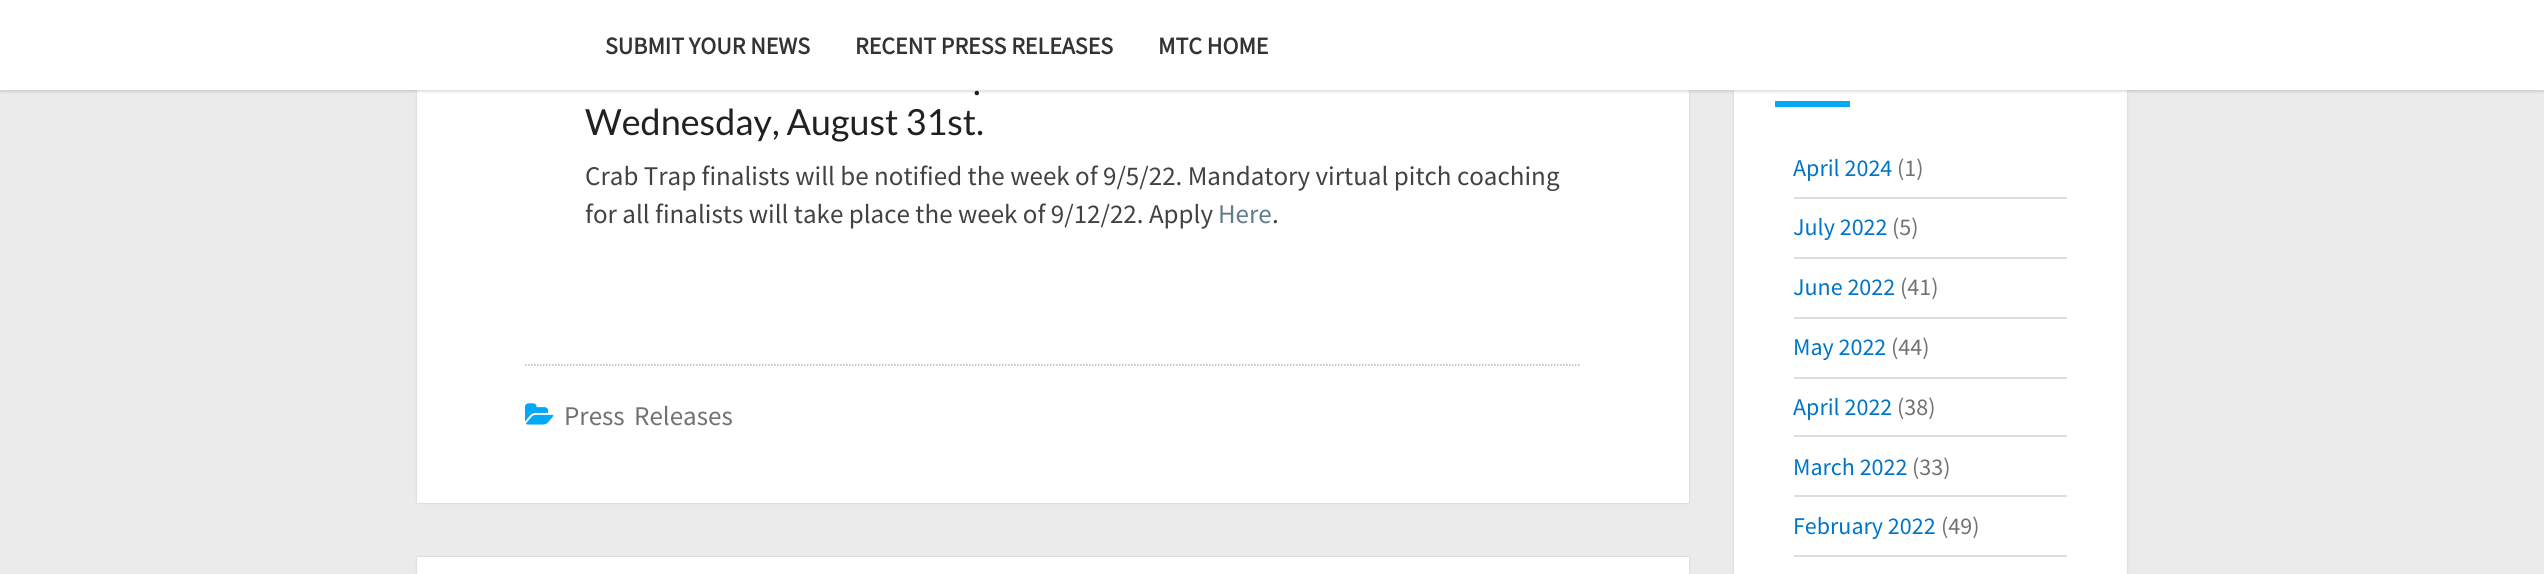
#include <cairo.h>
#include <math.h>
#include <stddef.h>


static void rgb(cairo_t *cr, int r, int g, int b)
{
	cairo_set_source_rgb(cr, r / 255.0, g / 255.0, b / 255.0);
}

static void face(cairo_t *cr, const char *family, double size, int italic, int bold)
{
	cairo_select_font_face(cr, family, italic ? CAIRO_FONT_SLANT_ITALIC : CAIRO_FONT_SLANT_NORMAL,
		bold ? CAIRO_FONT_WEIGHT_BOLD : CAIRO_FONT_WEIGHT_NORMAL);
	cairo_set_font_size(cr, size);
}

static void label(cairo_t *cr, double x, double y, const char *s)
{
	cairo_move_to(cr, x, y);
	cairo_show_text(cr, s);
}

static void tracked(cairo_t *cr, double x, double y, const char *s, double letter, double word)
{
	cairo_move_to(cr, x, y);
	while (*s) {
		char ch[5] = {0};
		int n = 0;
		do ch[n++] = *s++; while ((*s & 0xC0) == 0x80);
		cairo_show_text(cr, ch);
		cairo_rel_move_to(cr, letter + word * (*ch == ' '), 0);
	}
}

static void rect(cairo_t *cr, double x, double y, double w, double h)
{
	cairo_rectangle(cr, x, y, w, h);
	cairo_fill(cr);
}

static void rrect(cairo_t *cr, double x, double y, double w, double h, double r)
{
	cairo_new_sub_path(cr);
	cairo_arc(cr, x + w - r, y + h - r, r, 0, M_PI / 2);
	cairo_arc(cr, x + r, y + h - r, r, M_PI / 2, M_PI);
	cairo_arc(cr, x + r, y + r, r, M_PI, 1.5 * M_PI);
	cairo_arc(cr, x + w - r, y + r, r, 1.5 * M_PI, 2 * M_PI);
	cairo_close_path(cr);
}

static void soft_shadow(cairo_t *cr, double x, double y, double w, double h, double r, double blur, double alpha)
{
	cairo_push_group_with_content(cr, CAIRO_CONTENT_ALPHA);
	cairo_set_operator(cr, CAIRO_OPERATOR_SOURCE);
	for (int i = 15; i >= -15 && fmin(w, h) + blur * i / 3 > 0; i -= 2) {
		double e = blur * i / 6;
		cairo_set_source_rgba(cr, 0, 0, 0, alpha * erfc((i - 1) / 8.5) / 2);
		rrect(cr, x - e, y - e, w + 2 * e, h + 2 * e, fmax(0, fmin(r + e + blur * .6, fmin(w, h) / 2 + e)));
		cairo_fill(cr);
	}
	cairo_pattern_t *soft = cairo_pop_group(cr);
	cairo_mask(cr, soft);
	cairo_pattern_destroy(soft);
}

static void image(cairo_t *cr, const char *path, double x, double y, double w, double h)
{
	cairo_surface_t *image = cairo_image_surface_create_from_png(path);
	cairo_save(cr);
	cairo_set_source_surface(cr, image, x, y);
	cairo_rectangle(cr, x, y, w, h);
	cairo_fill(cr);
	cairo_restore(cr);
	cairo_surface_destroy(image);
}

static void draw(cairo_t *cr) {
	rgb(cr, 235, 235, 235);
	cairo_paint(cr);
	rgb(cr, 0, 0, 0);
	soft_shadow(cr, 417, -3, 1272, 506, 0, 1, 0.15);
	rgb(cr, 255, 255, 255);
	rect(cr, 417, 90, 1272, 413);
	rgb(cr, 0, 0, 0);
	soft_shadow(cr, 1734, 14, 393, 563, 0, 1, 0.15);
	rgb(cr, 255, 255, 255);
	rect(cr, 1734, 90, 393, 484);
	rgb(cr, 100, 100, 100);
	soft_shadow(cr, 0, 2, 2544, 90, 0, 1, 0.2);
	rgb(cr, 255, 255, 255);
	rect(cr, 0, 0, 2544, 90);
	face(cr, "Source Sans Pro", 24, 0, 1);
	rgb(cr, 51, 51, 51);
	label(cr, 605, 54, "SUBMIT YOUR NEWS");
	label(cr, 855, 54, "RECENT PRESS RELEASES");
	label(cr, 1158, 54, "MTC HOME");
	face(cr, "Lato", 36, 0, 0);
	rgb(cr, 33, 33, 33);
	label(cr, 973, 95, ".");
	label(cr, 585, 135, "Wednesday, August 31st.");
	face(cr, "Source Sans Pro", 27, 0, 0);
	rgb(cr, 66, 66, 66);
	label(cr, 585, 185, "Crab Trap finalists will be notified the week of 9/5/22. Mandatory virtual pitch coaching");
	label(cr, 585, 223, "for all finalists will take place the week of 9/12/22. Apply");
	rgb(cr, 96, 125, 139);
	label(cr, 1218, 223, "Here");
	rgb(cr, 66, 66, 66);
	label(cr, 1272, 223, ".");
	cairo_new_path(cr);
	cairo_move_to(cr, 525, 365);
	cairo_line_to(cr, 1581, 365);
	rgb(cr, 182, 182, 182);
	cairo_set_line_width(cr, 1.5);
	cairo_set_dash(cr, (double[]){1.5, 1.5}, 2, 0);
	cairo_stroke(cr);
	image(cr, "image0.png", 525, 403, 29, 22);
	rgb(cr, 114, 114, 114);
	tracked(cr, 564, 425, "Press Releases", 0, 4);
	rgb(cr, 0, 0, 0);
	soft_shadow(cr, 417, 557, 1272, 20, 0, 1, 0.15);
	rgb(cr, 255, 255, 255);
	rect(cr, 417, 557, 1272, 17);
	rgb(cr, 3, 169, 244);
	rect(cr, 1775, 101, 75, 6);
	rgb(cr, 221, 221, 221);
	rect(cr, 1794, 197, 273, 2);
	face(cr, "Source Sans Pro", 24, 0, 0);
	rgb(cr, 0, 116, 200);
	label(cr, 1793, 176, "April 2024");
	rgb(cr, 114, 114, 114);
	label(cr, 1897, 176, "(1)");
	rgb(cr, 221, 221, 221);
	rect(cr, 1794, 257, 273, 2);
	rgb(cr, 0, 116, 200);
	label(cr, 1793, 235, "July 2022");
	rgb(cr, 114, 114, 114);
	label(cr, 1892, 235, "(5)");
	rgb(cr, 221, 221, 221);
	rect(cr, 1794, 317, 273, 2);
	rgb(cr, 0, 116, 200);
	label(cr, 1793, 295, "June 2022");
	rgb(cr, 114, 114, 114);
	label(cr, 1900, 295, "(41)");
	rgb(cr, 221, 221, 221);
	rect(cr, 1794, 377, 273, 2);
	rgb(cr, 0, 116, 200);
	label(cr, 1793, 355, "May 2022");
	rgb(cr, 114, 114, 114);
	label(cr, 1891, 355, "(44)");
	rgb(cr, 221, 221, 221);
	rect(cr, 1794, 435, 273, 2);
	rgb(cr, 0, 116, 200);
	label(cr, 1793, 415, "April 2022");
	rgb(cr, 114, 114, 114);
	label(cr, 1897, 415, "(38)");
	rgb(cr, 221, 221, 221);
	rect(cr, 1794, 495, 273, 2);
	rgb(cr, 0, 116, 200);
	label(cr, 1793, 475, "March 2022");
	rgb(cr, 114, 114, 114);
	label(cr, 1912, 475, "(33)");
	rgb(cr, 221, 221, 221);
	rect(cr, 1794, 555, 273, 2);
	rgb(cr, 0, 116, 200);
	label(cr, 1793, 534, "February 2022");
	rgb(cr, 114, 114, 114);
	label(cr, 1941, 534, "(49)");
}

int main(void) {
	cairo_surface_t *surface = cairo_image_surface_create(CAIRO_FORMAT_RGB24, 2544, 574);
	cairo_t *cr = cairo_create(surface);
	cairo_font_options_t *options = cairo_font_options_create();
	cairo_font_options_set_hint_metrics(options, CAIRO_HINT_METRICS_OFF);
	cairo_font_options_set_hint_style(options, CAIRO_HINT_STYLE_NONE);
	cairo_set_font_options(cr, options);
	cairo_set_miter_limit(cr, 4);
	draw(cr);
	cairo_surface_write_to_png(surface, "render.png");
	cairo_font_options_destroy(options);
	cairo_destroy(cr);
	cairo_surface_destroy(surface);
	return 0;
}
